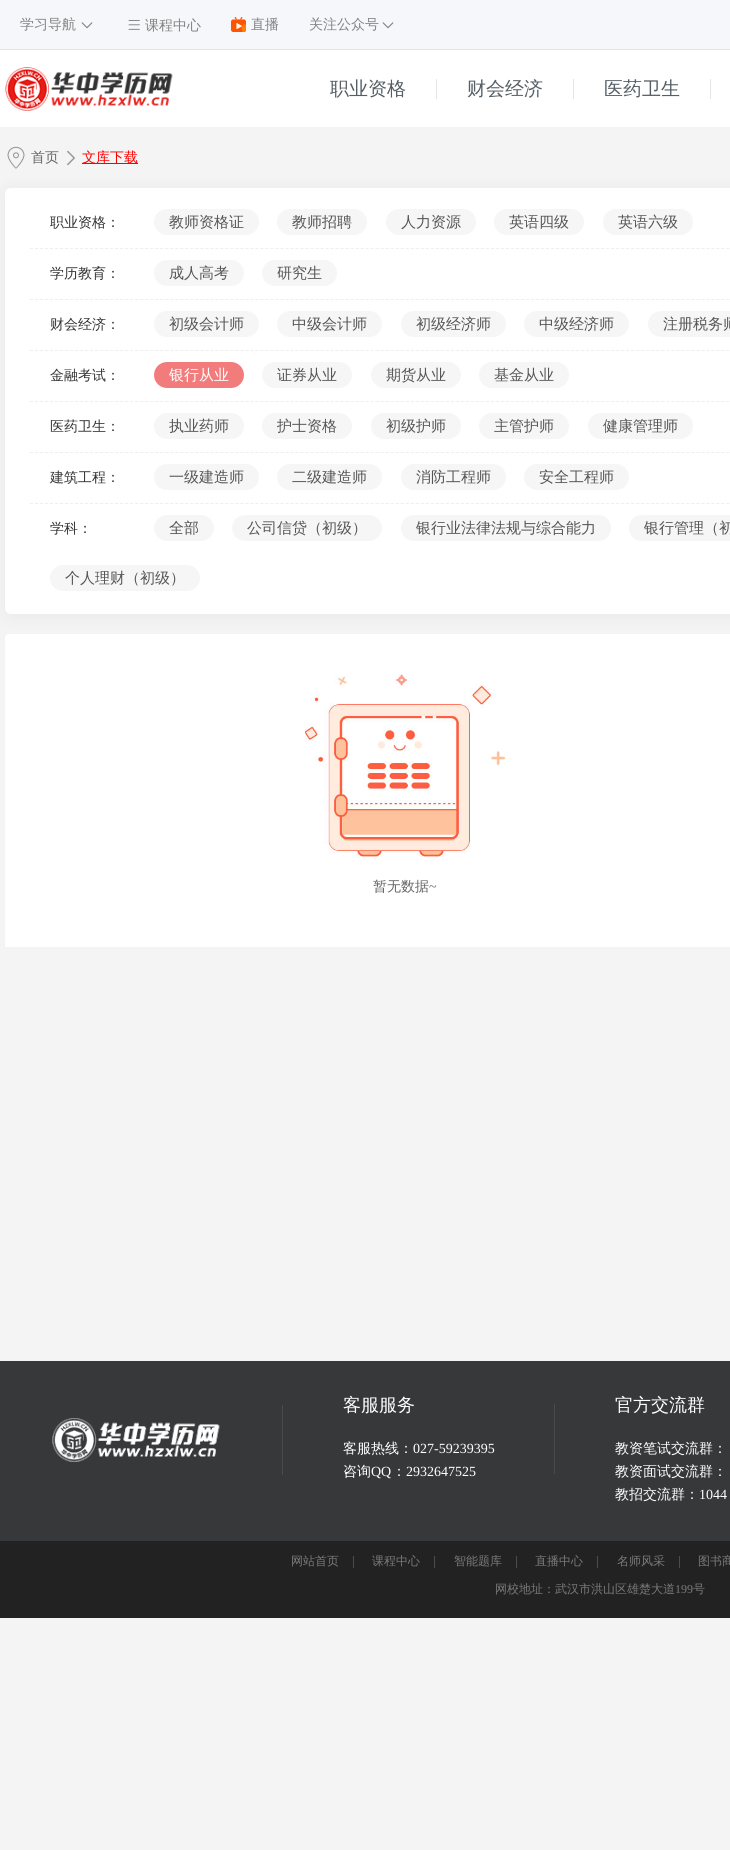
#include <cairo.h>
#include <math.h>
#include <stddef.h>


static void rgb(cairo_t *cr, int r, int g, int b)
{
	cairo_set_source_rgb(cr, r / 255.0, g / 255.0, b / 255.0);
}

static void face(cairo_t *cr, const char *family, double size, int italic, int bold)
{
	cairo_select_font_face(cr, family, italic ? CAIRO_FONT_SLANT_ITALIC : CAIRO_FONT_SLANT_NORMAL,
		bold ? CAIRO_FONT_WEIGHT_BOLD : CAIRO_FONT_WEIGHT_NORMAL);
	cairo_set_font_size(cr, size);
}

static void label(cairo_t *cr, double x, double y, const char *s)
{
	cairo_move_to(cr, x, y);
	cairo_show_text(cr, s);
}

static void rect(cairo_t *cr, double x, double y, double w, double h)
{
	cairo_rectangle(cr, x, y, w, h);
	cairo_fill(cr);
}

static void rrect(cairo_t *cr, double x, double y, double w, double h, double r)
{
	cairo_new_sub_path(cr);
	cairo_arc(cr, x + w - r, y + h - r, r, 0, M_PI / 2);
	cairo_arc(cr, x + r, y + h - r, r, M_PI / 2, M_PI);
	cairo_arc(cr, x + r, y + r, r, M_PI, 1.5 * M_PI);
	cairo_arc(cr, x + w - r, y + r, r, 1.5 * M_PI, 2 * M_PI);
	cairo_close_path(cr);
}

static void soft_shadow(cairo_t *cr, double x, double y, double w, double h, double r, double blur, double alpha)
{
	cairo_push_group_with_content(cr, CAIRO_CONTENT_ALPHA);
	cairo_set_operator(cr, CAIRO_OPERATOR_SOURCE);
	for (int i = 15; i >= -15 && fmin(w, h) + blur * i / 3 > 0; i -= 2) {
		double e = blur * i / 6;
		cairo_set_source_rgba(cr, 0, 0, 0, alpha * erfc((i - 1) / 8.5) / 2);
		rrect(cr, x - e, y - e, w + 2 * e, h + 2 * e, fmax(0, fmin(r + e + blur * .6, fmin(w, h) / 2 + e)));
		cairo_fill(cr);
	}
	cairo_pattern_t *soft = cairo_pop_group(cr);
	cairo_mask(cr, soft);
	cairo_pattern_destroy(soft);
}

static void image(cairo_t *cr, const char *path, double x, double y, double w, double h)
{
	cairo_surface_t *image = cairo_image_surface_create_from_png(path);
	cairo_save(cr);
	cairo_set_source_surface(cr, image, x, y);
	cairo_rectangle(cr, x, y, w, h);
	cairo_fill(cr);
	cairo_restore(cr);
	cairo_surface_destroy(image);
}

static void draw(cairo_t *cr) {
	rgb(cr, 244, 244, 244);
	cairo_paint(cr);
	rgb(cr, 245, 247, 250);
	rect(cr, 0, 0, 730, 49);
	rgb(cr, 227, 227, 227);
	rect(cr, 0, 49, 730, 1);
	face(cr, "WenQuanYi Zen Hei Medium", 14, 0, 0);
	rgb(cr, 130, 130, 130);
	label(cr, 20, 29, "学习导航");
	image(cr, "image0.png", 81, 22, 12, 7);
	image(cr, "image1.png", 128, 20, 12, 10);
	label(cr, 145, 30, "课程中心");
	image(cr, "image2.png", 231, 17, 15, 15);
	label(cr, 251, 29, "直播");
	label(cr, 309, 29, "关注公众号");
	image(cr, "image0.png", 382, 22, 12, 7);
	rgb(cr, 255, 255, 255);
	rect(cr, 0, 50, 730, 77);
	image(cr, "image3.png", 5, 67, 168, 44);
	rgb(cr, 229, 229, 229);
	rect(cr, 436, 79, 1, 20);
	face(cr, "WenQuanYi Zen Hei Medium", 19, 0, 0);
	rgb(cr, 84, 94, 100);
	label(cr, 330, 95, "职业资格");
	rgb(cr, 229, 229, 229);
	rect(cr, 573, 79, 1, 20);
	rgb(cr, 84, 94, 100);
	label(cr, 467, 95, "财会经济");
	rgb(cr, 229, 229, 229);
	rect(cr, 710, 79, 1, 20);
	rgb(cr, 84, 94, 100);
	label(cr, 604, 95, "医药卫生");
	image(cr, "image4.png", 7, 146, 18, 23);
	face(cr, "WenQuanYi Zen Hei Medium", 14, 0, 0);
	rgb(cr, 102, 102, 102);
	label(cr, 31, 162, "首页");
	image(cr, "image5.png", 67, 150, 8, 16);
	rgb(cr, 255, 0, 0);
	rect(cr, 82, 163, 56, 1);
	label(cr, 82, 162, "文库下载");
	rgb(cr, 255, 255, 255);
	cairo_new_path(cr);
	cairo_move_to(cr, 9, 634);
	cairo_line_to(cr, 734, 634);
	cairo_line_to(cr, 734, 947);
	cairo_line_to(cr, 5, 947);
	cairo_line_to(cr, 5, 638);
	cairo_curve_to(cr, 5, 636, 7, 634, 9, 634);
	cairo_close_path(cr);
	cairo_fill(cr);
	rgb(cr, 0, 0, 0);
	soft_shadow(cr, 5, 190, 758, 426, 6, 9, 0.05);
	rgb(cr, 255, 255, 255);
	rrect(cr, 5, 188, 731, 426, 6);
	cairo_fill(cr);
	cairo_new_path(cr);
	cairo_move_to(cr, 30, 248.5);
	cairo_line_to(cr, 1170, 248.5);
	rgb(cr, 238, 238, 238);
	cairo_set_line_width(cr, 1);
	cairo_set_dash(cr, (double[]){3, 2.01}, 2, 0);
	cairo_stroke(cr);
	rgb(cr, 51, 51, 51);
	label(cr, 50, 227, "职业资格：");
	rgb(cr, 246, 246, 246);
	rrect(cr, 154, 209, 105, 26, 13);
	cairo_fill(cr);
	face(cr, "WenQuanYi Zen Hei Medium", 15, 0, 0);
	rgb(cr, 85, 85, 85);
	label(cr, 169, 227, "教师资格证");
	rgb(cr, 246, 246, 246);
	rrect(cr, 277, 209, 90, 26, 13);
	cairo_fill(cr);
	rgb(cr, 85, 85, 85);
	label(cr, 292, 227, "教师招聘");
	rgb(cr, 246, 246, 246);
	rrect(cr, 386, 209, 90, 26, 13);
	cairo_fill(cr);
	rgb(cr, 85, 85, 85);
	label(cr, 401, 227, "人力资源");
	rgb(cr, 246, 246, 246);
	rrect(cr, 494, 209, 90, 26, 13);
	cairo_fill(cr);
	rgb(cr, 85, 85, 85);
	label(cr, 509, 227, "英语四级");
	rgb(cr, 246, 246, 246);
	rrect(cr, 603, 209, 90, 26, 13);
	cairo_fill(cr);
	rgb(cr, 85, 85, 85);
	label(cr, 618, 227, "英语六级");
	cairo_new_path(cr);
	cairo_move_to(cr, 30, 299.5);
	cairo_line_to(cr, 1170, 299.5);
	rgb(cr, 238, 238, 238);
	cairo_stroke(cr);
	face(cr, "WenQuanYi Zen Hei Medium", 14, 0, 0);
	rgb(cr, 51, 51, 51);
	label(cr, 50, 278, "学历教育：");
	rgb(cr, 246, 246, 246);
	rrect(cr, 154, 260, 90, 26, 13);
	cairo_fill(cr);
	face(cr, "WenQuanYi Zen Hei Medium", 15, 0, 0);
	rgb(cr, 85, 85, 85);
	label(cr, 169, 278, "成人高考");
	rgb(cr, 246, 246, 246);
	rrect(cr, 262, 260, 75, 26, 13);
	cairo_fill(cr);
	rgb(cr, 85, 85, 85);
	label(cr, 277, 278, "研究生");
	cairo_new_path(cr);
	cairo_move_to(cr, 30, 350.5);
	cairo_line_to(cr, 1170, 350.5);
	rgb(cr, 238, 238, 238);
	cairo_stroke(cr);
	face(cr, "WenQuanYi Zen Hei Medium", 14, 0, 0);
	rgb(cr, 51, 51, 51);
	label(cr, 50, 329, "财会经济：");
	rgb(cr, 246, 246, 246);
	rrect(cr, 154, 311, 105, 26, 13);
	cairo_fill(cr);
	face(cr, "WenQuanYi Zen Hei Medium", 15, 0, 0);
	rgb(cr, 85, 85, 85);
	label(cr, 169, 329, "初级会计师");
	rgb(cr, 246, 246, 246);
	rrect(cr, 277, 311, 105, 26, 13);
	cairo_fill(cr);
	rgb(cr, 85, 85, 85);
	label(cr, 292, 329, "中级会计师");
	rgb(cr, 246, 246, 246);
	rrect(cr, 401, 311, 105, 26, 13);
	cairo_fill(cr);
	rgb(cr, 85, 85, 85);
	label(cr, 416, 329, "初级经济师");
	rgb(cr, 246, 246, 246);
	rrect(cr, 524, 311, 105, 26, 13);
	cairo_fill(cr);
	rgb(cr, 85, 85, 85);
	label(cr, 539, 329, "中级经济师");
	rgb(cr, 246, 246, 246);
	rrect(cr, 648, 311, 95, 26, 13);
	cairo_fill(cr);
	rgb(cr, 85, 85, 85);
	label(cr, 663, 329, "注册税务师");
	cairo_new_path(cr);
	cairo_move_to(cr, 30, 401.5);
	cairo_line_to(cr, 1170, 401.5);
	rgb(cr, 238, 238, 238);
	cairo_stroke(cr);
	face(cr, "WenQuanYi Zen Hei Medium", 14, 0, 0);
	rgb(cr, 51, 51, 51);
	label(cr, 50, 380, "金融考试：");
	rgb(cr, 242, 124, 124);
	rrect(cr, 154, 362, 90, 26, 13);
	cairo_fill(cr);
	face(cr, "WenQuanYi Zen Hei Medium", 15, 0, 0);
	rgb(cr, 255, 255, 255);
	label(cr, 169, 380, "银行从业");
	rgb(cr, 246, 246, 246);
	rrect(cr, 262, 362, 90, 26, 13);
	cairo_fill(cr);
	rgb(cr, 85, 85, 85);
	label(cr, 277, 380, "证券从业");
	rgb(cr, 246, 246, 246);
	rrect(cr, 371, 362, 90, 26, 13);
	cairo_fill(cr);
	rgb(cr, 85, 85, 85);
	label(cr, 386, 380, "期货从业");
	rgb(cr, 246, 246, 246);
	rrect(cr, 479, 362, 90, 26, 13);
	cairo_fill(cr);
	rgb(cr, 85, 85, 85);
	label(cr, 494, 380, "基金从业");
	cairo_new_path(cr);
	cairo_move_to(cr, 30, 452.5);
	cairo_line_to(cr, 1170, 452.5);
	rgb(cr, 238, 238, 238);
	cairo_stroke(cr);
	face(cr, "WenQuanYi Zen Hei Medium", 14, 0, 0);
	rgb(cr, 51, 51, 51);
	label(cr, 50, 431, "医药卫生：");
	rgb(cr, 246, 246, 246);
	rrect(cr, 154, 413, 90, 26, 13);
	cairo_fill(cr);
	face(cr, "WenQuanYi Zen Hei Medium", 15, 0, 0);
	rgb(cr, 85, 85, 85);
	label(cr, 169, 431, "执业药师");
	rgb(cr, 246, 246, 246);
	rrect(cr, 262, 413, 90, 26, 13);
	cairo_fill(cr);
	rgb(cr, 85, 85, 85);
	label(cr, 277, 431, "护士资格");
	rgb(cr, 246, 246, 246);
	rrect(cr, 371, 413, 90, 26, 13);
	cairo_fill(cr);
	rgb(cr, 85, 85, 85);
	label(cr, 386, 431, "初级护师");
	rgb(cr, 246, 246, 246);
	rrect(cr, 479, 413, 90, 26, 13);
	cairo_fill(cr);
	rgb(cr, 85, 85, 85);
	label(cr, 494, 431, "主管护师");
	rgb(cr, 246, 246, 246);
	rrect(cr, 588, 413, 105, 26, 13);
	cairo_fill(cr);
	rgb(cr, 85, 85, 85);
	label(cr, 603, 431, "健康管理师");
	cairo_new_path(cr);
	cairo_move_to(cr, 30, 503.5);
	cairo_line_to(cr, 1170, 503.5);
	rgb(cr, 238, 238, 238);
	cairo_stroke(cr);
	face(cr, "WenQuanYi Zen Hei Medium", 14, 0, 0);
	rgb(cr, 51, 51, 51);
	label(cr, 50, 482, "建筑工程：");
	rgb(cr, 246, 246, 246);
	rrect(cr, 154, 464, 105, 26, 13);
	cairo_fill(cr);
	face(cr, "WenQuanYi Zen Hei Medium", 15, 0, 0);
	rgb(cr, 85, 85, 85);
	label(cr, 169, 482, "一级建造师");
	rgb(cr, 246, 246, 246);
	rrect(cr, 277, 464, 105, 26, 13);
	cairo_fill(cr);
	rgb(cr, 85, 85, 85);
	label(cr, 292, 482, "二级建造师");
	rgb(cr, 246, 246, 246);
	rrect(cr, 401, 464, 105, 26, 13);
	cairo_fill(cr);
	rgb(cr, 85, 85, 85);
	label(cr, 416, 482, "消防工程师");
	rgb(cr, 246, 246, 246);
	rrect(cr, 524, 464, 105, 26, 13);
	cairo_fill(cr);
	rgb(cr, 85, 85, 85);
	label(cr, 539, 482, "安全工程师");
	face(cr, "WenQuanYi Zen Hei Medium", 14, 0, 0);
	rgb(cr, 51, 51, 51);
	label(cr, 50, 533, "学科：");
	rgb(cr, 246, 246, 246);
	rrect(cr, 154, 515, 60, 26, 13);
	cairo_fill(cr);
	face(cr, "WenQuanYi Zen Hei Medium", 15, 0, 0);
	rgb(cr, 85, 85, 85);
	label(cr, 169, 533, "全部");
	rgb(cr, 246, 246, 246);
	rrect(cr, 232, 515, 150, 26, 13);
	cairo_fill(cr);
	rgb(cr, 85, 85, 85);
	label(cr, 247, 533, "公司信贷（初级）");
	rgb(cr, 246, 246, 246);
	rrect(cr, 401, 515, 210, 26, 13);
	cairo_fill(cr);
	rgb(cr, 85, 85, 85);
	label(cr, 416, 533, "银行业法律法规与综合能力");
	rgb(cr, 246, 246, 246);
	rrect(cr, 629, 515, 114, 26, 13);
	cairo_fill(cr);
	rgb(cr, 85, 85, 85);
	label(cr, 644, 533, "银行管理（初");
	rgb(cr, 246, 246, 246);
	rrect(cr, 50, 565, 150, 26, 13);
	cairo_fill(cr);
	rgb(cr, 85, 85, 85);
	label(cr, 65, 583, "个人理财（初级）");
	image(cr, "image6.png", 305, 674, 200, 183);
	face(cr, "WenQuanYi Zen Hei Medium", 14, 0, 0);
	rgb(cr, 102, 102, 102);
	label(cr, 373, 891, "暂无数据");
	face(cr, "Liberation Serif", 14, 0, 0);
	label(cr, 429, 891, "~");
	rgb(cr, 55, 56, 58);
	rect(cr, 0, 1361, 730, 180);
	image(cr, "image7.png", 52, 1418, 168, 44);
	rgb(cr, 74, 75, 77);
	rect(cr, 282, 1405, 1, 70);
	face(cr, "WenQuanYi Zen Hei Medium", 18, 0, 0);
	rgb(cr, 255, 255, 255);
	label(cr, 343, 1411, "客服服务");
	rgb(cr, 74, 75, 77);
	rect(cr, 554, 1404, 1, 70);
	face(cr, "WenQuanYi Zen Hei Medium", 14, 0, 0);
	rgb(cr, 255, 255, 255);
	label(cr, 343, 1453, "客服热线：");
	face(cr, "Liberation Serif", 14, 0, 0);
	label(cr, 413, 1453, "027-59239395");
	face(cr, "WenQuanYi Zen Hei Medium", 14, 0, 0);
	label(cr, 343, 1476, "咨询");
	face(cr, "Liberation Serif", 14, 0, 0);
	label(cr, 371, 1476, "QQ");
	face(cr, "WenQuanYi Zen Hei Medium", 14, 0, 0);
	label(cr, 392, 1476, "：");
	face(cr, "Liberation Serif", 14, 0, 0);
	label(cr, 406, 1476, "2932647525");
	face(cr, "WenQuanYi Zen Hei Medium", 18, 0, 0);
	label(cr, 615, 1411, "官方交流群");
	face(cr, "WenQuanYi Zen Hei Medium", 14, 0, 0);
	label(cr, 615, 1453, "教资笔试交流群：");
	label(cr, 615, 1476, "教资面试交流群：");
	label(cr, 615, 1499, "教招交流群：");
	face(cr, "Liberation Serif", 14, 0, 0);
	label(cr, 699, 1499, "1044");
	rgb(cr, 34, 34, 34);
	rect(cr, 0, 1541, 730, 77);
	face(cr, "WenQuanYi Zen Hei Medium", 12, 0, 0);
	rgb(cr, 122, 122, 122);
	label(cr, 291, 1565, "网站首页");
	rgb(cr, 76, 76, 76);
	rect(cr, 353, 1556, 1, 12);
	rgb(cr, 122, 122, 122);
	label(cr, 372, 1565, "课程中心");
	rgb(cr, 76, 76, 76);
	rect(cr, 434, 1556, 1, 12);
	rgb(cr, 122, 122, 122);
	label(cr, 454, 1565, "智能题库");
	rgb(cr, 76, 76, 76);
	rect(cr, 516, 1556, 1, 12);
	rgb(cr, 122, 122, 122);
	label(cr, 535, 1565, "直播中心");
	rgb(cr, 76, 76, 76);
	rect(cr, 597, 1556, 1, 12);
	rgb(cr, 122, 122, 122);
	label(cr, 617, 1565, "名师风采");
	rgb(cr, 76, 76, 76);
	rect(cr, 679, 1556, 1, 12);
	rgb(cr, 122, 122, 122);
	label(cr, 698, 1565, "图书商");
	label(cr, 495, 1593, "网校地址：武汉市洪山区雄楚大道");
	face(cr, "Liberation Serif", 12, 0, 0);
	label(cr, 675, 1593, "199");
	face(cr, "WenQuanYi Zen Hei Medium", 12, 0, 0);
	label(cr, 693, 1593, "号");
}

int main(void) {
	cairo_surface_t *surface = cairo_image_surface_create(CAIRO_FORMAT_RGB24, 730, 1850);
	cairo_t *cr = cairo_create(surface);
	cairo_font_options_t *options = cairo_font_options_create();
	cairo_font_options_set_hint_metrics(options, CAIRO_HINT_METRICS_OFF);
	cairo_font_options_set_hint_style(options, CAIRO_HINT_STYLE_NONE);
	cairo_set_font_options(cr, options);
	cairo_set_miter_limit(cr, 4);
	draw(cr);
	cairo_surface_write_to_png(surface, "render.png");
	cairo_font_options_destroy(options);
	cairo_destroy(cr);
	cairo_surface_destroy(surface);
	return 0;
}
